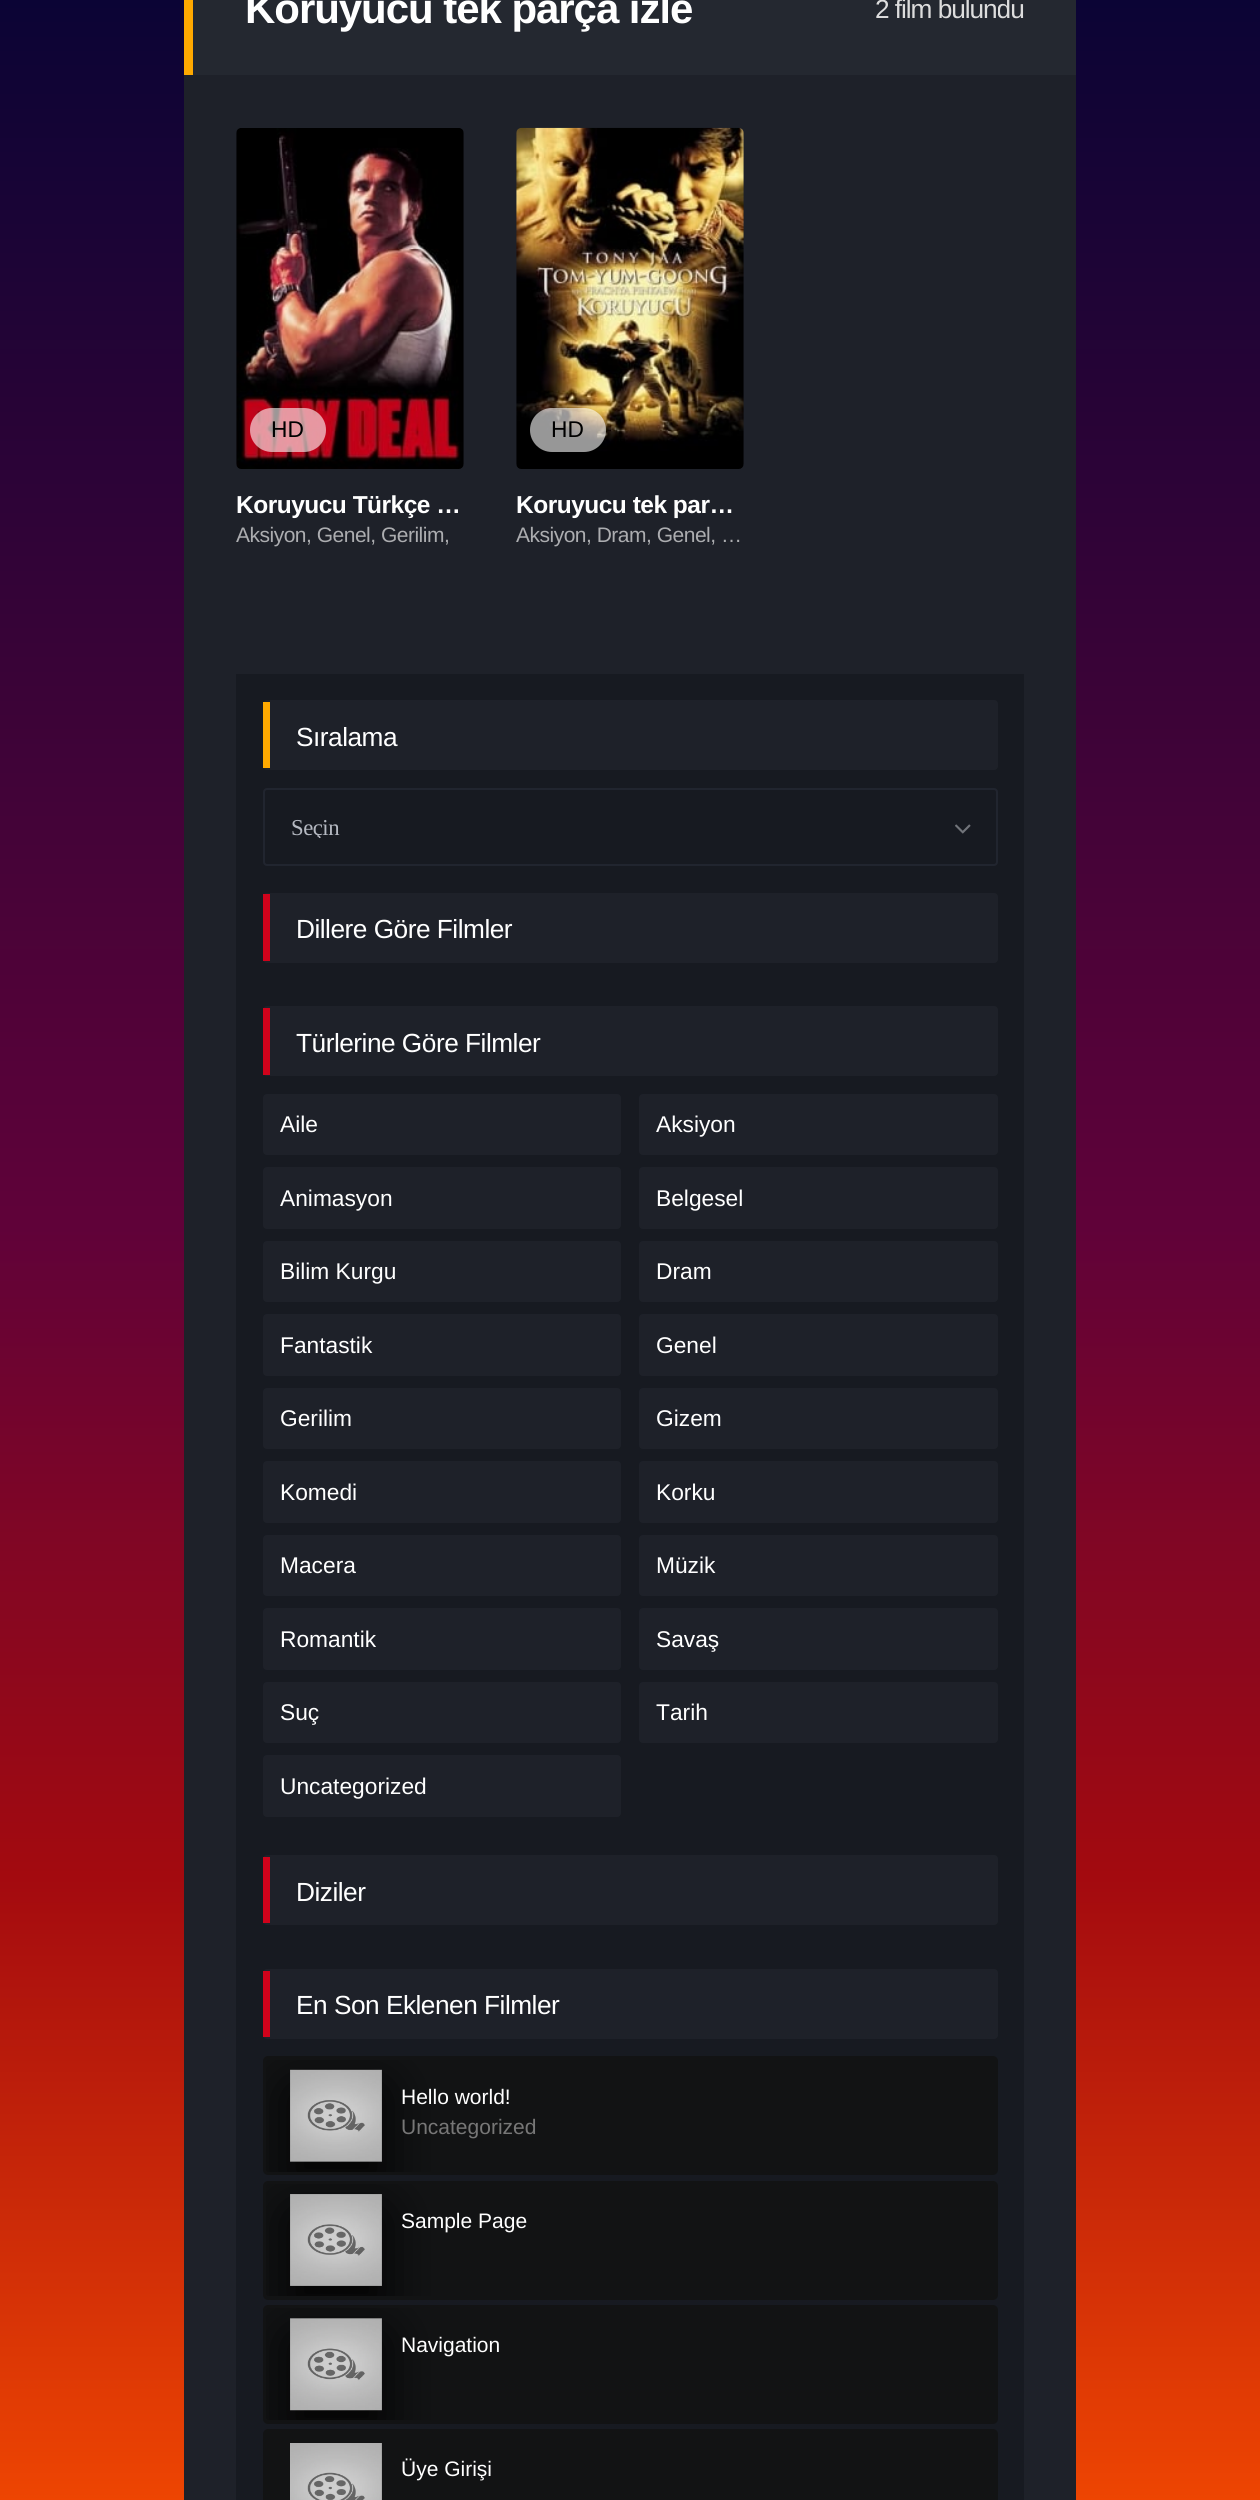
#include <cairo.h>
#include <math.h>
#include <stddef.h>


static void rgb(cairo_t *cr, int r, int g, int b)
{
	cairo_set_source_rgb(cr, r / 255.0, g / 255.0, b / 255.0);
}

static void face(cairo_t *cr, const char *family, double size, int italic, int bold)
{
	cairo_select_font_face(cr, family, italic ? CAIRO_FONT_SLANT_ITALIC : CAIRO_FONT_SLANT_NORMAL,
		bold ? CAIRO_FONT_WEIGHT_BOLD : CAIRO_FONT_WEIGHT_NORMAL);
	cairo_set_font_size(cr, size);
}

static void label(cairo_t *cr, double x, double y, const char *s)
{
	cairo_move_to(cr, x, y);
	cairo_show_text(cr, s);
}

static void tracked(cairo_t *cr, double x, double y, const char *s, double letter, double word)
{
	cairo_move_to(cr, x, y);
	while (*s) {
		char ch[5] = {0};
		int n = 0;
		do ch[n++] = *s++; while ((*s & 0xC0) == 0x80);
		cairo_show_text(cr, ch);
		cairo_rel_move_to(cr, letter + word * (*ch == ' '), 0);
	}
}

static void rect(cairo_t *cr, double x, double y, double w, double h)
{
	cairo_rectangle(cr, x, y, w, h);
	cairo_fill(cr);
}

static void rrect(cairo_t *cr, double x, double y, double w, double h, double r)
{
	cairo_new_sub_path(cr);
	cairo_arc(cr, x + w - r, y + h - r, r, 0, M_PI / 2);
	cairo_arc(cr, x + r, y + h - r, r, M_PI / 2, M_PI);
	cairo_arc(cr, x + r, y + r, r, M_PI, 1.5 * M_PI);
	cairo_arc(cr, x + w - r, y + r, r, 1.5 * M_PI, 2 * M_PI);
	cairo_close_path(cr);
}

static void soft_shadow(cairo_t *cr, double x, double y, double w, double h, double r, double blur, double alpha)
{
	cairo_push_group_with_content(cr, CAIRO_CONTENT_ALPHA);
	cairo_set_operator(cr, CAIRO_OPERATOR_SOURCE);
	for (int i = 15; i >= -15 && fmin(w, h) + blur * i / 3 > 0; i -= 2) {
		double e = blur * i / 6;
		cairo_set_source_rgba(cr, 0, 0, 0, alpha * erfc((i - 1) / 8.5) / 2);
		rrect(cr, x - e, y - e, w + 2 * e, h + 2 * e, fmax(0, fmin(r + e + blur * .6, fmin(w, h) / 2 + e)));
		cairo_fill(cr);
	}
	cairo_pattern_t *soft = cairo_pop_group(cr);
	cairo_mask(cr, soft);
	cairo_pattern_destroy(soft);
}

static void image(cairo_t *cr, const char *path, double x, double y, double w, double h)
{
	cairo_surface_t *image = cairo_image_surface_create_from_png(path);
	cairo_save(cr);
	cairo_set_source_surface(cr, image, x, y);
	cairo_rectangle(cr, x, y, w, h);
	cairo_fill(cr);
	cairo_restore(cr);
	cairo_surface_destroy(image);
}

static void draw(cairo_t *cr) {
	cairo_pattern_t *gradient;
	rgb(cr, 255, 255, 255);
	cairo_paint(cr);
	gradient = cairo_pattern_create_linear(630, 0, 630, 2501);
	cairo_pattern_add_color_stop_rgba(gradient, 0, 0.043, 0.016, 0.208, 1);
	cairo_pattern_add_color_stop_rgba(gradient, 0.49, 0.376, 0.008, 0.224, 1);
	cairo_pattern_add_color_stop_rgba(gradient, 0.75, 0.639, 0.039, 0.059, 1);
	cairo_pattern_add_color_stop_rgba(gradient, 1, 0.933, 0.271, 0.008, 1);
	cairo_set_source(cr, gradient);
	cairo_pattern_destroy(gradient);
	rect(cr, 0, 0, 1260, 2500);
	rgb(cr, 36, 40, 48);
	rect(cr, 193, 0, 883, 75);
	rgb(cr, 255, 169, 0);
	rect(cr, 184, 0, 9, 75);
	face(cr, "Liberation Sans", 42, 0, 1);
	rgb(cr, 255, 255, 255);
	tracked(cr, 245, 23, "Koruyucu tek parça izle", -1.05, 0);
	face(cr, "Liberation Sans", 26.25, 0, 0);
	rgb(cr, 221, 221, 221);
	tracked(cr, 875, 18, "2 film bulundu", -1.05, 0);
	rgb(cr, 30, 33, 41);
	rect(cr, 184, 75, 892, 2425);
	image(cr, "image0.png", 236, 128, 228, 341);
	cairo_set_source_rgba(cr, 1, 1, 1, 0.59);
	rrect(cr, 250, 408, 76, 44, 22);
	cairo_fill(cr);
	face(cr, "Liberation Sans", 22.75, 0, 0);
	rgb(cr, 0, 0, 0);
	label(cr, 271, 437, "HD");
	face(cr, "Liberation Sans", 24.5, 0, 1);
	rgb(cr, 255, 255, 255);
	tracked(cr, 236, 513, "Koruyucu Türkçe …", -0.5, 0);
	face(cr, "Liberation Sans", 21, 0, 0);
	rgb(cr, 172, 173, 176);
	tracked(cr, 236, 542, "Aksiyon, Genel, Gerilim,", -0.5, 0);
	image(cr, "image1.png", 516, 127, 228, 342);
	cairo_set_source_rgba(cr, 1, 1, 1, 0.59);
	rrect(cr, 530, 408, 76, 44, 22);
	cairo_fill(cr);
	face(cr, "Liberation Sans", 22.75, 0, 0);
	rgb(cr, 0, 0, 0);
	label(cr, 551, 437, "HD");
	face(cr, "Liberation Sans", 24.5, 0, 1);
	rgb(cr, 255, 255, 255);
	tracked(cr, 516, 513, "Koruyucu tek par…", -0.5, 0);
	face(cr, "Liberation Sans", 21, 0, 0);
	rgb(cr, 172, 173, 176);
	tracked(cr, 516, 542, "Aksiyon, Dram, Genel, …", -0.5, 0);
	rgb(cr, 23, 26, 33);
	rect(cr, 236, 674, 788, 1826);
	rgb(cr, 30, 33, 41);
	rrect(cr, 263, 700, 735, 70, 4);
	cairo_fill(cr);
	rgb(cr, 255, 169, 0);
	rect(cr, 263, 702, 7, 66);
	face(cr, "Liberation Sans", 26.25, 0, 0);
	rgb(cr, 255, 255, 255);
	tracked(cr, 296, 746, "Sıralama", -0.5, 0);
	rrect(cr, 264, 789, 733, 76, 3);
	rgb(cr, 33, 37, 47);
	cairo_stroke(cr);
	cairo_save(cr);
	cairo_rectangle(cr, 291, 816, 679, 22);
	cairo_clip(cr);
	face(cr, "Liberation Serif", 22.75, 0, 0);
	rgb(cr, 181, 185, 194);
	tracked(cr, 291, 835, "Seçin", -0.5, 0);
	cairo_restore(cr);
	image(cr, "image2.png", 955, 824, 16, 10);
	rgb(cr, 30, 33, 41);
	rrect(cr, 263, 893, 735, 70, 4);
	cairo_fill(cr);
	rgb(cr, 208, 2, 27);
	rect(cr, 263, 894, 7, 67);
	rgb(cr, 255, 255, 255);
	tracked(cr, 296, 938, "Dillere Göre Filmler", -0.5, 0);
	rgb(cr, 30, 33, 41);
	rrect(cr, 263, 1006, 735, 70, 4);
	cairo_fill(cr);
	rgb(cr, 208, 2, 27);
	rect(cr, 263, 1008, 7, 67);
	rgb(cr, 255, 255, 255);
	tracked(cr, 296, 1052, "Türlerine Göre Filmler", -0.5, 0);
	rgb(cr, 30, 33, 41);
	rrect(cr, 263, 1094, 358, 61, 4);
	cairo_fill(cr);
	face(cr, "Liberation Sans", 22.75, 0, 0);
	rgb(cr, 255, 255, 255);
	label(cr, 280, 1132, "Aile");
	rgb(cr, 30, 33, 41);
	rrect(cr, 639, 1094, 359, 61, 4);
	cairo_fill(cr);
	rgb(cr, 255, 255, 255);
	label(cr, 656, 1132, "Aksiyon");
	rgb(cr, 30, 33, 41);
	rrect(cr, 263, 1167, 358, 62, 4);
	cairo_fill(cr);
	rgb(cr, 255, 255, 255);
	label(cr, 280, 1206, "Animasyon");
	rgb(cr, 30, 33, 41);
	rrect(cr, 639, 1167, 359, 62, 4);
	cairo_fill(cr);
	rgb(cr, 255, 255, 255);
	label(cr, 656, 1206, "Belgesel");
	rgb(cr, 30, 33, 41);
	rrect(cr, 263, 1241, 358, 61, 4);
	cairo_fill(cr);
	rgb(cr, 255, 255, 255);
	label(cr, 280, 1279, "Bilim Kurgu");
	rgb(cr, 30, 33, 41);
	rrect(cr, 639, 1241, 359, 61, 4);
	cairo_fill(cr);
	rgb(cr, 255, 255, 255);
	label(cr, 656, 1279, "Dram");
	rgb(cr, 30, 33, 41);
	rrect(cr, 263, 1314, 358, 62, 4);
	cairo_fill(cr);
	rgb(cr, 255, 255, 255);
	label(cr, 280, 1353, "Fantastik");
	rgb(cr, 30, 33, 41);
	rrect(cr, 639, 1314, 359, 62, 4);
	cairo_fill(cr);
	rgb(cr, 255, 255, 255);
	label(cr, 656, 1353, "Genel");
	rgb(cr, 30, 33, 41);
	rrect(cr, 263, 1388, 358, 61, 4);
	cairo_fill(cr);
	rgb(cr, 255, 255, 255);
	label(cr, 280, 1426, "Gerilim");
	rgb(cr, 30, 33, 41);
	rrect(cr, 639, 1388, 359, 61, 4);
	cairo_fill(cr);
	rgb(cr, 255, 255, 255);
	label(cr, 656, 1426, "Gizem");
	rgb(cr, 30, 33, 41);
	rrect(cr, 263, 1461, 358, 62, 4);
	cairo_fill(cr);
	rgb(cr, 255, 255, 255);
	label(cr, 280, 1500, "Komedi");
	rgb(cr, 30, 33, 41);
	rrect(cr, 639, 1461, 359, 62, 4);
	cairo_fill(cr);
	rgb(cr, 255, 255, 255);
	label(cr, 656, 1500, "Korku");
	rgb(cr, 30, 33, 41);
	rrect(cr, 263, 1535, 358, 61, 4);
	cairo_fill(cr);
	rgb(cr, 255, 255, 255);
	label(cr, 280, 1573, "Macera");
	rgb(cr, 30, 33, 41);
	rrect(cr, 639, 1535, 359, 61, 4);
	cairo_fill(cr);
	rgb(cr, 255, 255, 255);
	label(cr, 656, 1573, "Müzik");
	rgb(cr, 30, 33, 41);
	rrect(cr, 263, 1608, 358, 62, 4);
	cairo_fill(cr);
	rgb(cr, 255, 255, 255);
	label(cr, 280, 1647, "Romantik");
	rgb(cr, 30, 33, 41);
	rrect(cr, 639, 1608, 359, 62, 4);
	cairo_fill(cr);
	rgb(cr, 255, 255, 255);
	label(cr, 656, 1647, "Savaş");
	rgb(cr, 30, 33, 41);
	rrect(cr, 263, 1682, 358, 61, 4);
	cairo_fill(cr);
	rgb(cr, 255, 255, 255);
	label(cr, 280, 1720, "Suç");
	rgb(cr, 30, 33, 41);
	rrect(cr, 639, 1682, 359, 61, 4);
	cairo_fill(cr);
	rgb(cr, 255, 255, 255);
	label(cr, 656, 1720, "Tarih");
	rgb(cr, 30, 33, 41);
	rrect(cr, 263, 1755, 358, 62, 4);
	cairo_fill(cr);
	rgb(cr, 255, 255, 255);
	label(cr, 280, 1794, "Uncategorized");
	rgb(cr, 30, 33, 41);
	rrect(cr, 263, 1855, 735, 70, 4);
	cairo_fill(cr);
	rgb(cr, 208, 2, 27);
	rect(cr, 263, 1857, 7, 66);
	face(cr, "Liberation Sans", 26.25, 0, 0);
	rgb(cr, 255, 255, 255);
	tracked(cr, 296, 1901, "Diziler", -0.5, 0);
	rgb(cr, 30, 33, 41);
	rrect(cr, 263, 1969, 735, 70, 4);
	cairo_fill(cr);
	rgb(cr, 208, 2, 27);
	rect(cr, 263, 1971, 7, 66);
	rgb(cr, 255, 255, 255);
	tracked(cr, 296, 2014, "En Son Eklenen Filmler", -0.5, 0);
	rgb(cr, 18, 19, 20);
	rrect(cr, 263, 2056, 735, 119, 5);
	cairo_fill(cr);
	cairo_save(cr);
	rrect(cr, 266, 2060, 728, 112, 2);
	cairo_clip(cr);
	cairo_set_fill_rule(cr, CAIRO_FILL_RULE_EVEN_ODD);
	cairo_new_path(cr);
	cairo_move_to(cr, 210, 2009);
	cairo_line_to(cr, 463, 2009);
	cairo_line_to(cr, 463, 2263);
	cairo_line_to(cr, 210, 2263);
	cairo_close_path(cr);
	cairo_move_to(cr, 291, 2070);
	cairo_line_to(cr, 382, 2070);
	cairo_line_to(cr, 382, 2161);
	cairo_line_to(cr, 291, 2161);
	cairo_close_path(cr);
	cairo_clip(cr);
	rgb(cr, 1, 1, 1);
	soft_shadow(cr, 291, 2090, 91, 92, 0, 26.5, 1);
	cairo_restore(cr);
	image(cr, "image3.png", 290, 2069, 92, 93);
	face(cr, "Liberation Sans", 21, 0, 0);
	rgb(cr, 255, 255, 255);
	label(cr, 401, 2104, "Hello world!");
	rgb(cr, 18, 19, 20);
	rrect(cr, 263, 2181, 735, 119, 5);
	cairo_fill(cr);
	cairo_save(cr);
	rrect(cr, 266, 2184, 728, 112, 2);
	cairo_clip(cr);
	cairo_set_fill_rule(cr, CAIRO_FILL_RULE_EVEN_ODD);
	cairo_new_path(cr);
	cairo_move_to(cr, 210, 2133);
	cairo_line_to(cr, 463, 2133);
	cairo_line_to(cr, 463, 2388);
	cairo_line_to(cr, 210, 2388);
	cairo_close_path(cr);
	cairo_move_to(cr, 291, 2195);
	cairo_line_to(cr, 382, 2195);
	cairo_line_to(cr, 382, 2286);
	cairo_line_to(cr, 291, 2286);
	cairo_close_path(cr);
	cairo_clip(cr);
	rgb(cr, 1, 1, 1);
	soft_shadow(cr, 291, 2214, 91, 93, 0, 26.5, 1);
	cairo_restore(cr);
	rgb(cr, 119, 119, 119);
	label(cr, 401, 2134, "Uncategorized");
	image(cr, "image4.png", 290, 2194, 92, 92);
	rgb(cr, 255, 255, 255);
	label(cr, 401, 2228, "Sample Page");
	rgb(cr, 18, 19, 20);
	rrect(cr, 263, 2305, 735, 119, 5);
	cairo_fill(cr);
	cairo_save(cr);
	rrect(cr, 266, 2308, 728, 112, 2);
	cairo_clip(cr);
	cairo_set_fill_rule(cr, CAIRO_FILL_RULE_EVEN_ODD);
	cairo_new_path(cr);
	cairo_move_to(cr, 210, 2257);
	cairo_line_to(cr, 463, 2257);
	cairo_line_to(cr, 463, 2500);
	cairo_line_to(cr, 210, 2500);
	cairo_close_path(cr);
	cairo_move_to(cr, 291, 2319);
	cairo_line_to(cr, 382, 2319);
	cairo_line_to(cr, 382, 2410);
	cairo_line_to(cr, 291, 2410);
	cairo_close_path(cr);
	cairo_clip(cr);
	rgb(cr, 1, 1, 1);
	soft_shadow(cr, 291, 2338, 91, 93, 0, 26.5, 1);
	cairo_restore(cr);
	image(cr, "image5.png", 290, 2318, 92, 93);
	rgb(cr, 255, 255, 255);
	label(cr, 401, 2352, "Navigation");
	rgb(cr, 18, 19, 20);
	rrect(cr, 263, 2429, 735, 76, 5);
	cairo_fill(cr);
	image(cr, "image6.png", 290, 2443, 92, 57);
	rgb(cr, 255, 255, 255);
	label(cr, 401, 2476, "Üye Girişi");
}

int main(void) {
	cairo_surface_t *surface = cairo_image_surface_create(CAIRO_FORMAT_RGB24, 1260, 2500);
	cairo_t *cr = cairo_create(surface);
	cairo_font_options_t *options = cairo_font_options_create();
	cairo_font_options_set_hint_metrics(options, CAIRO_HINT_METRICS_OFF);
	cairo_font_options_set_hint_style(options, CAIRO_HINT_STYLE_NONE);
	cairo_set_font_options(cr, options);
	cairo_set_miter_limit(cr, 4);
	draw(cr);
	cairo_surface_write_to_png(surface, "render.png");
	cairo_font_options_destroy(options);
	cairo_destroy(cr);
	cairo_surface_destroy(surface);
	return 0;
}
